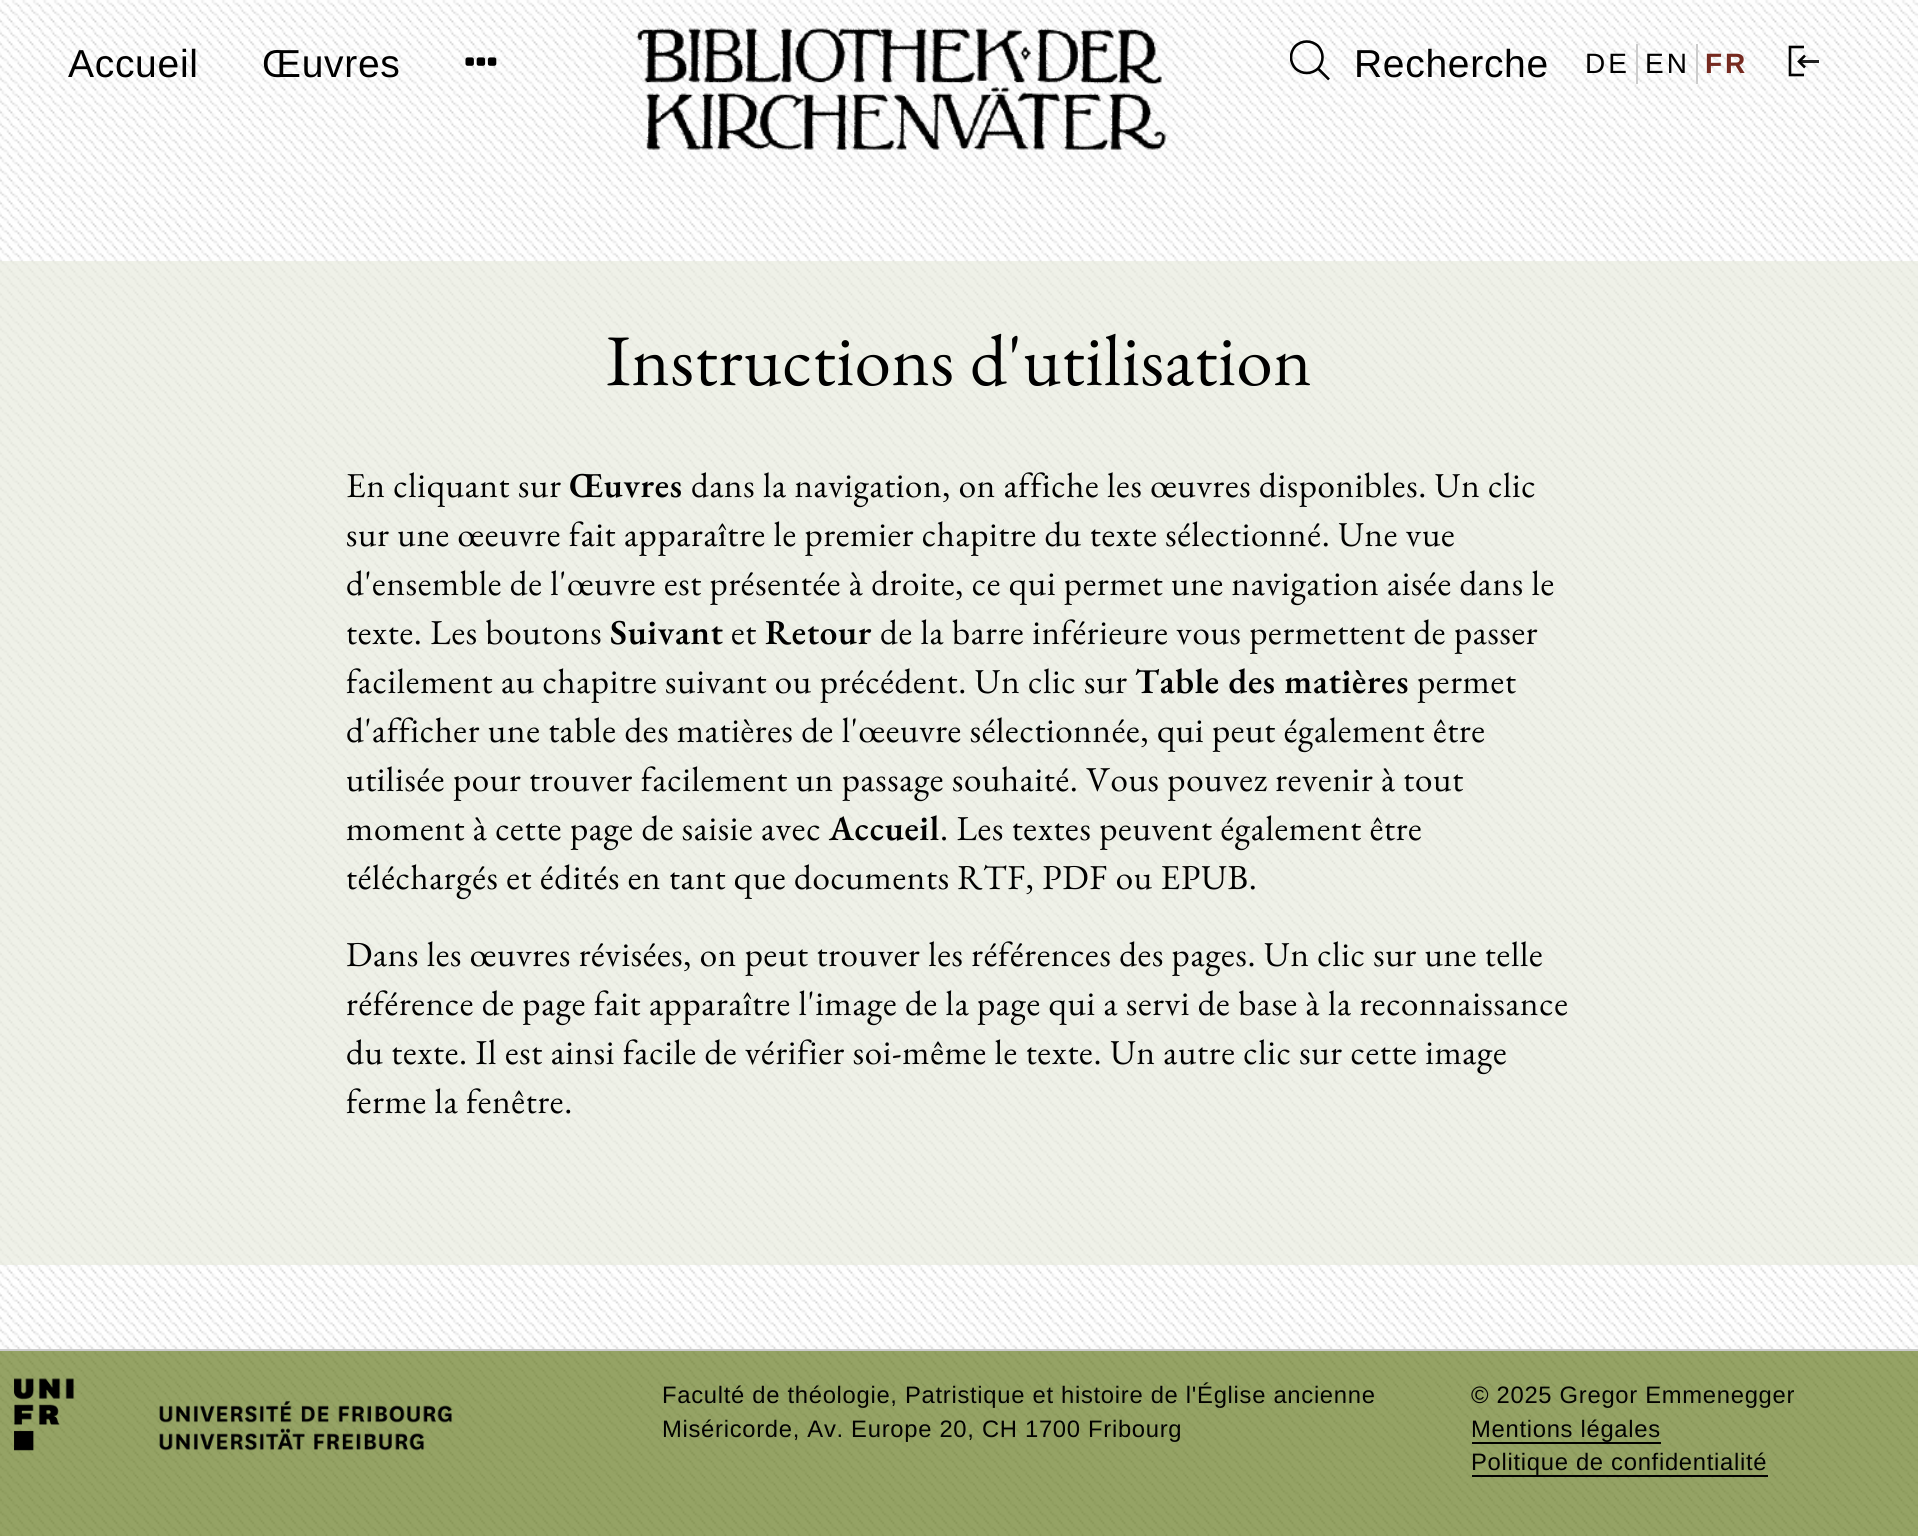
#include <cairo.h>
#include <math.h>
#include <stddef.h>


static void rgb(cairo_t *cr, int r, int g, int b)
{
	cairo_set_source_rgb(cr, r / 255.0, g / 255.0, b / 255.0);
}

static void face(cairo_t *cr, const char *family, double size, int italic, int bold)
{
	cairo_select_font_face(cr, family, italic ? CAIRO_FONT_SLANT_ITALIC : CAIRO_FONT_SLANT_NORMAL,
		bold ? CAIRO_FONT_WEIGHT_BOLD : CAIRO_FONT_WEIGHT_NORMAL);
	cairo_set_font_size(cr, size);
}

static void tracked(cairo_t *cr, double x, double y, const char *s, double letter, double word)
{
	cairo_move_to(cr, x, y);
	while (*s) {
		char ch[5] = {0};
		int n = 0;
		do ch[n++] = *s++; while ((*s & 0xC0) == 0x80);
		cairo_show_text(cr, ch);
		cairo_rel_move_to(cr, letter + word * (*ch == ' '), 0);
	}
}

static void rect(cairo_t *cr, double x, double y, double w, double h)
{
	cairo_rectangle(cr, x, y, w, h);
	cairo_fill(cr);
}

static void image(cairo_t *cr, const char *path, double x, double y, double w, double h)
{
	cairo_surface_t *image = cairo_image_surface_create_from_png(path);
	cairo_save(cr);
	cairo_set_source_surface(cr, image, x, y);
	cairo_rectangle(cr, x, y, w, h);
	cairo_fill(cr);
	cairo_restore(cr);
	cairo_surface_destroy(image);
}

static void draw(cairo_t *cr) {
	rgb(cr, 255, 255, 255);
	cairo_paint(cr);
	image(cr, "image0.png", 0, 0, 1918, 1536);
	face(cr, "Liberation Sans", 39, 0, 0);
	rgb(cr, 0, 0, 0);
	tracked(cr, 68, 77, "Accueil", 0.7, 0);
	tracked(cr, 262, 77, "Œuvres", 0.7, 0);
	image(cr, "image1.png", 465, 57, 32, 9);
	image(cr, "image2.png", 636, 28, 530, 122);
	cairo_save(cr);
	cairo_rectangle(cr, 1290, 40, 42, 42);
	cairo_clip(cr);
	cairo_new_path(cr);
	cairo_move_to(cr, 1295.5, 46);
	cairo_curve_to(cr, 1302, 40, 1311.5, 40, 1318, 46);
	cairo_curve_to(cr, 1324, 52.5, 1324, 62, 1318, 68.5);
	cairo_curve_to(cr, 1311.5, 74.5, 1302, 74.5, 1295.5, 68.5);
	cairo_curve_to(cr, 1289.5, 62, 1289.5, 52.5, 1295.5, 46);
	cairo_close_path(cr);
	cairo_set_line_width(cr, 2.6);
	cairo_stroke(cr);
	cairo_restore(cr);
	cairo_new_path(cr);
	cairo_move_to(cr, 1318.5, 69);
	cairo_line_to(cr, 1329, 79.5);
	cairo_set_line_width(cr, 2.6);
	cairo_stroke(cr);
	tracked(cr, 1354, 77, "Recherche", 0.7, 0);
	face(cr, "Liberation Sans", 28, 0, 0);
	tracked(cr, 1585, 73, "DE", 3, 0);
	rgb(cr, 204, 204, 204);
	rect(cr, 1636, 44, 2, 40);
	rgb(cr, 0, 0, 0);
	tracked(cr, 1645, 73, "EN", 3, 0);
	rgb(cr, 204, 204, 204);
	rect(cr, 1696, 44, 2, 40);
	face(cr, "Liberation Sans", 28, 0, 1);
	rgb(cr, 118, 41, 31);
	tracked(cr, 1705, 73, "FR", 3, 0);
	cairo_new_path(cr);
	cairo_move_to(cr, 1805, 67.5);
	cairo_line_to(cr, 1799, 61.5);
	cairo_line_to(cr, 1805, 55.5);
	rgb(cr, 0, 0, 0);
	cairo_stroke(cr);
	cairo_set_source_rgba(cr, 0, 0, 0, 0.87);
	rect(cr, 1800, 60, 19, 3);
	cairo_new_path(cr);
	cairo_move_to(cr, 1804, 75);
	cairo_line_to(cr, 1790, 75);
	cairo_line_to(cr, 1790, 47);
	cairo_line_to(cr, 1804, 47);
	rgb(cr, 0, 0, 0);
	cairo_stroke(cr);
	cairo_set_source_rgba(cr, 0.914, 0.925, 0.871, 0.7);
	rect(cr, 0, 261, 1918, 1004);
	face(cr, "EB Garamond", 72.75, 0, 0);
	rgb(cr, 0, 0, 0);
	tracked(cr, 606, 385, "Instructions d'utilisation", 0.7, 0);
	face(cr, "EB Garamond", 35, 0, 0);
	tracked(cr, 346, 497, "En cliquant sur", 0.7, 0);
	face(cr, "EB Garamond SemiBold", 35, 0, 0);
	tracked(cr, 569, 497, "Œuvres", 0.7, 0);
	face(cr, "EB Garamond", 35, 0, 0);
	tracked(cr, 691, 497, "dans la navigation, on affiche les œuvres disponibles. Un clic", 0.7, 0);
	tracked(cr, 346, 546, "sur une œeuvre fait apparaître le premier chapitre du texte sélectionné. Une vue", 0.7, 0);
	tracked(cr, 346, 595, "d'ensemble de l'œuvre est présentée à droite, ce qui permet une navigation aisée dans le", 0.7, 0);
	tracked(cr, 346, 644, "texte. Les boutons", 0.7, 0);
	face(cr, "EB Garamond SemiBold", 35, 0, 0);
	tracked(cr, 610, 644, "Suivant", 0.7, 0);
	face(cr, "EB Garamond", 35, 0, 0);
	tracked(cr, 731, 644, "et", 0.7, 0);
	face(cr, "EB Garamond SemiBold", 35, 0, 0);
	tracked(cr, 765, 644, "Retour", 0.7, 0);
	face(cr, "EB Garamond", 35, 0, 0);
	tracked(cr, 880, 644, "de la barre inférieure vous permettent de passer", 0.7, 0);
	tracked(cr, 346, 693, "facilement au chapitre suivant ou précédent. Un clic sur", 0.7, 0);
	face(cr, "EB Garamond SemiBold", 35, 0, 0);
	tracked(cr, 1135, 693, "Table des matières", 0.7, 0);
	face(cr, "EB Garamond", 35, 0, 0);
	tracked(cr, 1417, 693, "permet", 0.7, 0);
	tracked(cr, 346, 742, "d'afficher une table des matières de l'œeuvre sélectionnée, qui peut également être", 0.7, 0);
	tracked(cr, 346, 791, "utilisée pour trouver facilement un passage souhaité. Vous pouvez revenir à tout", 0.7, 0);
	tracked(cr, 346, 840, "moment à cette page de saisie avec", 0.7, 0);
	face(cr, "EB Garamond SemiBold", 35, 0, 0);
	tracked(cr, 829, 840, "Accueil", 0.7, 0);
	face(cr, "EB Garamond", 35, 0, 0);
	tracked(cr, 940, 840, ". Les textes peuvent également être", 0.7, 0);
	tracked(cr, 346, 889, "téléchargés et édités en tant que documents RTF, PDF ou EPUB.", 0.7, 0);
	tracked(cr, 346, 966, "Dans les œuvres révisées, on peut trouver les références des pages. Un clic sur une telle", 0.7, 0);
	tracked(cr, 346, 1015, "référence de page fait apparaître l'image de la page qui a servi de base à la reconnaissance", 0.7, 0);
	tracked(cr, 346, 1064, "du texte. Il est ainsi facile de vérifier soi-même le texte. Un autre clic sur cette image", 0.7, 0);
	tracked(cr, 346, 1113, "ferme la fenêtre.", 0.7, 0);
	cairo_set_source_rgba(cr, 0.412, 0.49, 0.145, 0.7);
	rect(cr, 0, 1351, 1918, 185);
	rgb(cr, 204, 204, 204);
	rect(cr, 0, 1349, 1918, 2);
	image(cr, "image3.png", 14, 1378, 438, 73);
	face(cr, "Liberation Sans", 23.8, 0, 0);
	rgb(cr, 0, 0, 0);
	tracked(cr, 662, 1403, "Faculté de théologie, Patristique et histoire de l'Église ancienne", 0.7, 0);
	tracked(cr, 662, 1437, "Miséricorde, Av. Europe 20, CH 1700 Fribourg", 0.7, 0);
	tracked(cr, 1471, 1403, "© 2025 Gregor Emmenegger", 0.7, 0);
	tracked(cr, 1471, 1437, "Mentions légales", 0.7, 0);
	rect(cr, 1472, 1442, 189, 2);
	tracked(cr, 1471, 1470, "Politique de confidentialité", 0.7, 0);
	rect(cr, 1472, 1475, 296, 2);
}

int main(void) {
	cairo_surface_t *surface = cairo_image_surface_create(CAIRO_FORMAT_RGB24, 1918, 1536);
	cairo_t *cr = cairo_create(surface);
	cairo_font_options_t *options = cairo_font_options_create();
	cairo_font_options_set_hint_metrics(options, CAIRO_HINT_METRICS_OFF);
	cairo_font_options_set_hint_style(options, CAIRO_HINT_STYLE_NONE);
	cairo_set_font_options(cr, options);
	cairo_set_miter_limit(cr, 4);
	draw(cr);
	cairo_surface_write_to_png(surface, "render.png");
	cairo_font_options_destroy(options);
	cairo_destroy(cr);
	cairo_surface_destroy(surface);
	return 0;
}
